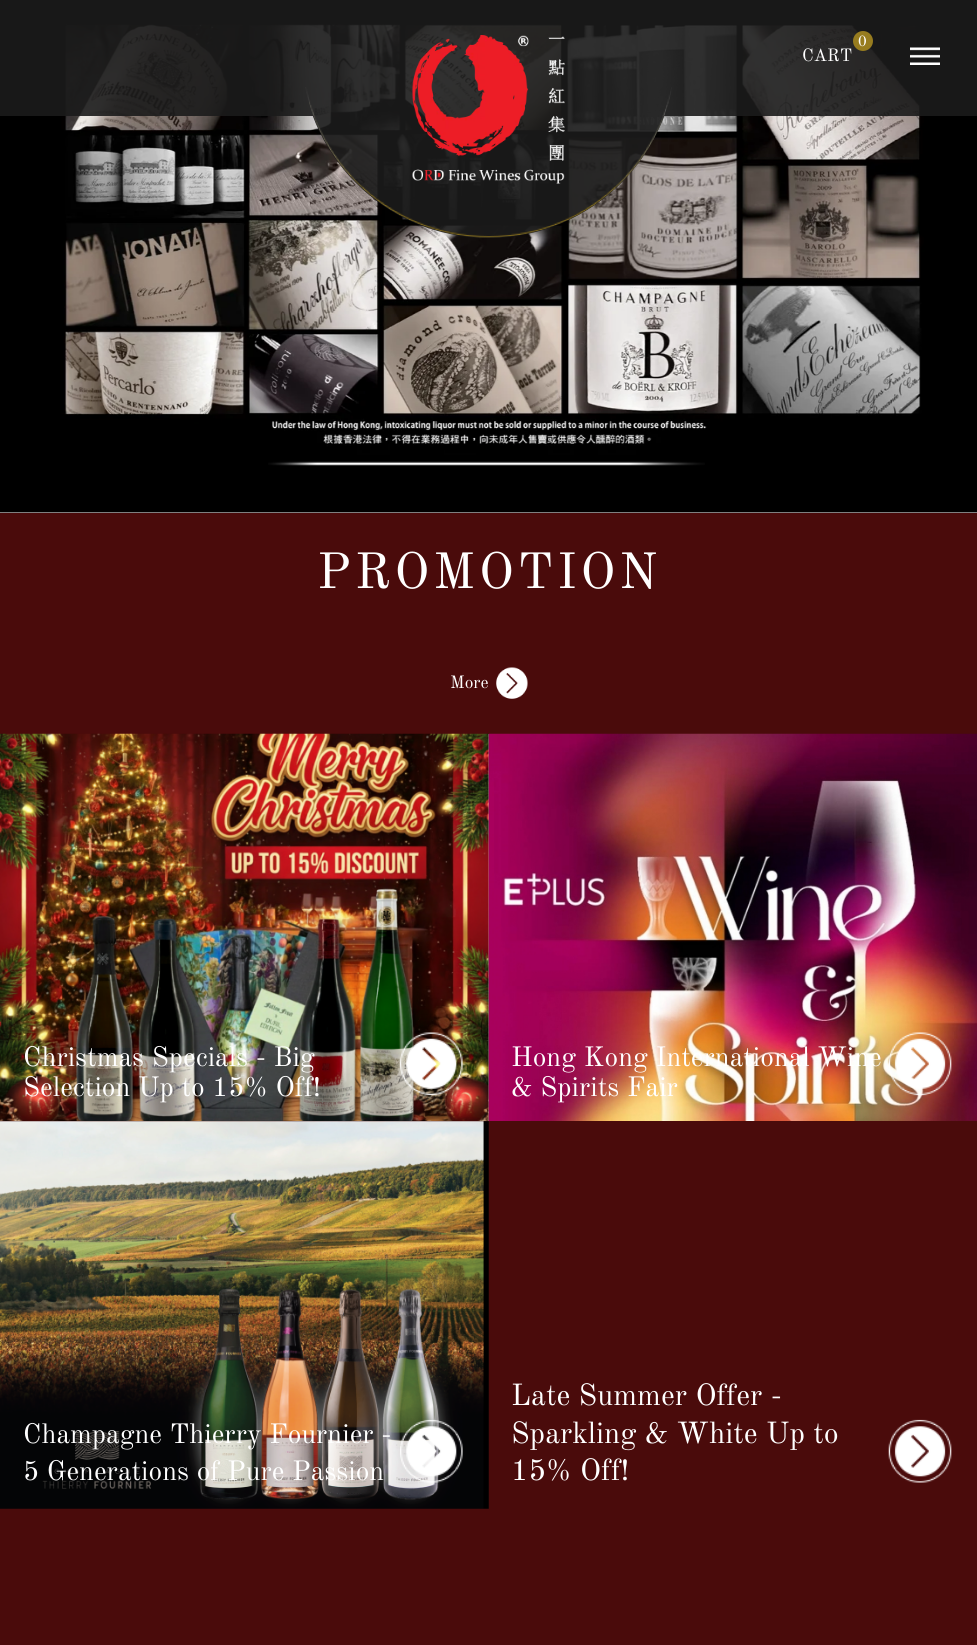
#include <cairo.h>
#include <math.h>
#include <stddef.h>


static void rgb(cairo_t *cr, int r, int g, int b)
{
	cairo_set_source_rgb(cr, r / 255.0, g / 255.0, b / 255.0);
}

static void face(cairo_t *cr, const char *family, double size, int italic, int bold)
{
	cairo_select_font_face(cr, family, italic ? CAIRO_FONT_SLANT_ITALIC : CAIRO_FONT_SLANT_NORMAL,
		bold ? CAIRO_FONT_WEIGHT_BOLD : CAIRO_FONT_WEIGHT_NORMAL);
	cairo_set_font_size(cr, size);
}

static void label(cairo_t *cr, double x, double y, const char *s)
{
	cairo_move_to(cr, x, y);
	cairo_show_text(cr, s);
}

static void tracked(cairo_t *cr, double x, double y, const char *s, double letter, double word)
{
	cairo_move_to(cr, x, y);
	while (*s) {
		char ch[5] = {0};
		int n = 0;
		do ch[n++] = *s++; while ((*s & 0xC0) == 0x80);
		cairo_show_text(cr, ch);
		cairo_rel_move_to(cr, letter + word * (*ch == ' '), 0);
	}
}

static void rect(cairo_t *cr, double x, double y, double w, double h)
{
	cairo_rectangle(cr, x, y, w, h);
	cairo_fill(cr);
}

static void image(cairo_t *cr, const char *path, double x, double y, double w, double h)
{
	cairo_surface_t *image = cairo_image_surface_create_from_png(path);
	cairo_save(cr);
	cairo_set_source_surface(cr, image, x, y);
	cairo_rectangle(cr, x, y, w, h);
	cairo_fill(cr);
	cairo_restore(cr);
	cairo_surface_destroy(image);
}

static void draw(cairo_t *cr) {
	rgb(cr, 255, 255, 255);
	cairo_paint(cr);
	image(cr, "image4.png", 0, 0, 977, 513);
	cairo_set_source_rgba(cr, 0.106, 0.106, 0.106, 0.9);
	rect(cr, 0, 0, 977, 116);
	image(cr, "image0.png", 309, 102, 360, 136);
	cairo_save(cr);
	cairo_new_path(cr);
	cairo_move_to(cr, 301, 0);
	cairo_line_to(cr, 676, 0);
	cairo_line_to(cr, 676, 50.5);
	cairo_curve_to(cr, 676, 154, 592, 238, 488.5, 238);
	cairo_curve_to(cr, 385, 238, 301, 154, 301, 50.5);
	cairo_close_path(cr);
	cairo_clip(cr);
	rect(cr, 312, 116, 353, 122);
	cairo_restore(cr);
	image(cr, "image2.png", 305, 87, 367, 151);
	image(cr, "image1.png", 412, 35, 153, 149);
	rgb(cr, 151, 124, 31);
	cairo_arc(cr, 863, 41, 10, 0, 2 * M_PI);
	cairo_fill(cr);
	face(cr, "Old Standard TT", 15, 0, 0);
	rgb(cr, 255, 255, 255);
	label(cr, 858, 46, "0");
	face(cr, "Old Standard TT", 17.5, 0, 0);
	label(cr, 802, 61, "CART");
	image(cr, "image3.png", 910, 47, 30, 18);
	image(cr, "image5.png", 268, 461, 437, 5);
	rgb(cr, 74, 11, 11);
	rect(cr, 0, 513, 977, 221);
	face(cr, "Old Standard TT", 50, 0, 0);
	rgb(cr, 255, 255, 255);
	tracked(cr, 317, 588, "PROMOTION", 3.75, 0);
	image(cr, "image6.png", 496, 667, 32, 32);
	face(cr, "Old Standard TT", 17.5, 0, 0);
	label(cr, 450, 688, "More");
	image(cr, "image7.png", 0, 733, 489, 388);
	face(cr, "Old Standard TT", 27.5, 0, 0);
	label(cr, 23, 1066, "Christmas Specials - Big");
	label(cr, 23, 1096, "Selection Up to 15% Off!");
	image(cr, "image8.png", 399, 1032, 64, 64);
	image(cr, "image9.png", 488, 733, 489, 388);
	label(cr, 511, 1066, "Hong Kong International Wine");
	label(cr, 511, 1096, "& Spirits Fair");
	image(cr, "image10.png", 888, 1032, 64, 64);
	rgb(cr, 74, 11, 11);
	rect(cr, 0, 1121, 977, 524);
	image(cr, "image11.png", 0, 1121, 489, 388);
	rgb(cr, 255, 255, 255);
	label(cr, 23, 1443, "Champagne Thierry Fournier -");
	label(cr, 23, 1480, "5 Generations of Pure Passion");
	image(cr, "image12.png", 400, 1419, 63, 64);
	face(cr, "Old Standard TT", 30, 0, 0);
	label(cr, 511, 1405, "Late Summer Offer -");
	label(cr, 511, 1443, "Sparkling & White Up to");
	label(cr, 511, 1480, "15% Off!");
	image(cr, "image13.png", 888, 1419, 64, 64);
}

int main(void) {
	cairo_surface_t *surface = cairo_image_surface_create(CAIRO_FORMAT_RGB24, 977, 1645);
	cairo_t *cr = cairo_create(surface);
	cairo_font_options_t *options = cairo_font_options_create();
	cairo_font_options_set_hint_metrics(options, CAIRO_HINT_METRICS_OFF);
	cairo_font_options_set_hint_style(options, CAIRO_HINT_STYLE_NONE);
	cairo_set_font_options(cr, options);
	cairo_set_miter_limit(cr, 4);
	draw(cr);
	cairo_surface_write_to_png(surface, "render.png");
	cairo_font_options_destroy(options);
	cairo_destroy(cr);
	cairo_surface_destroy(surface);
	return 0;
}
